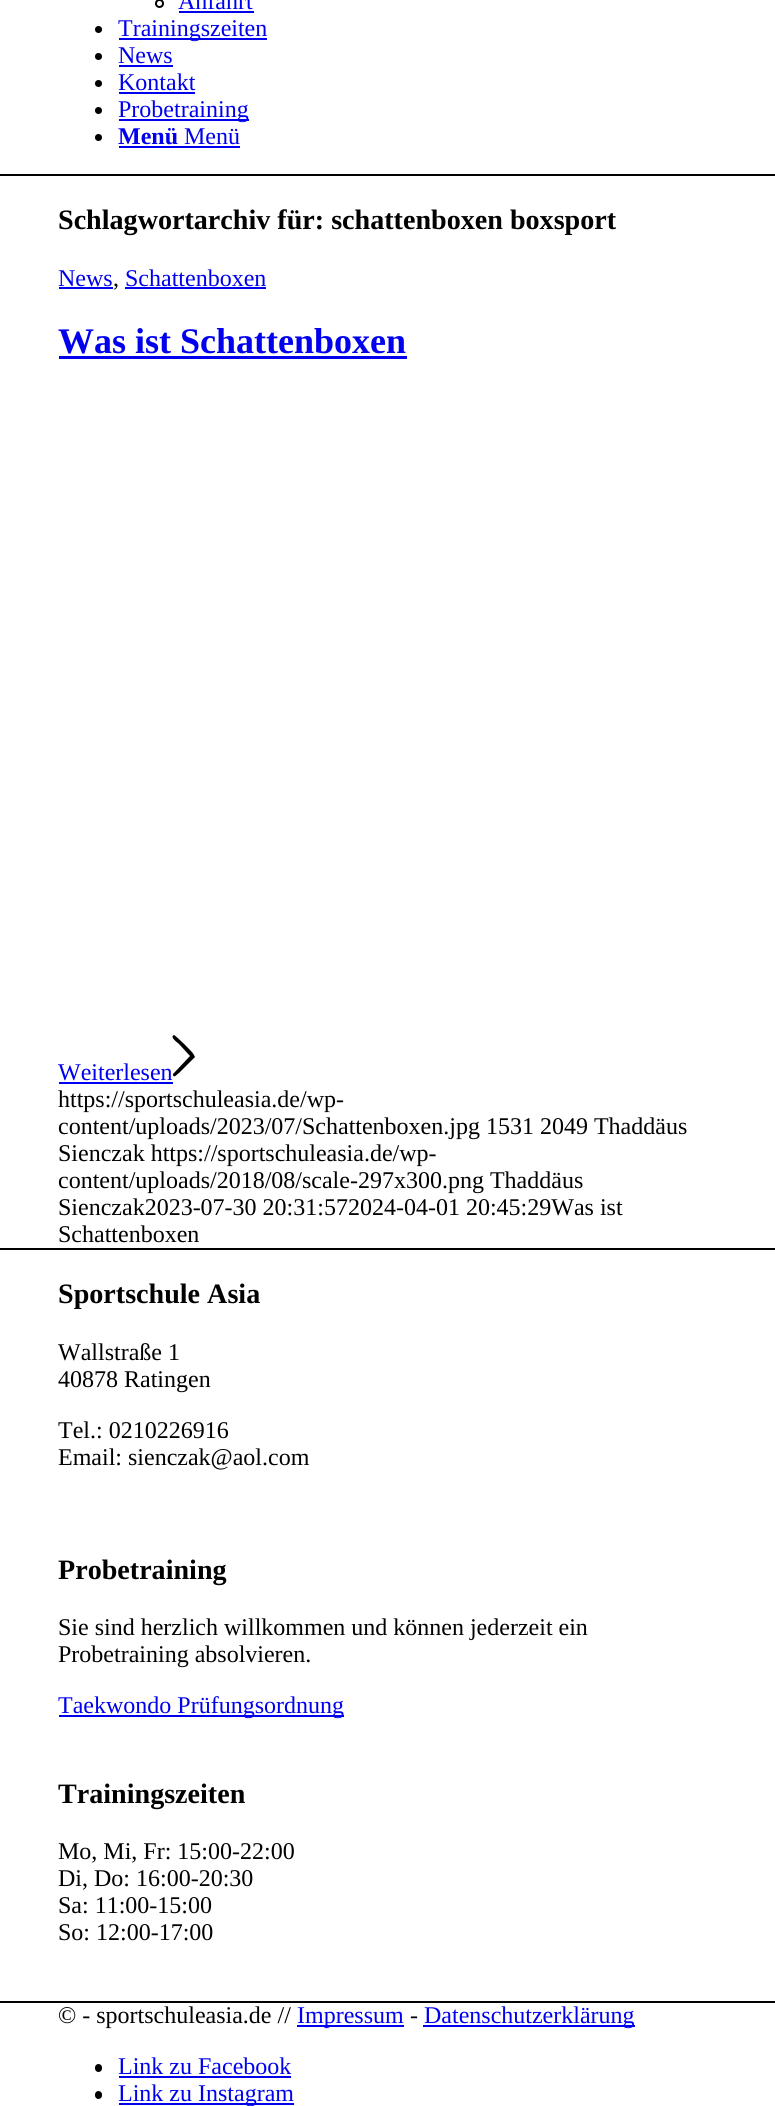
#include <cairo.h>
#include <math.h>
#include <stddef.h>


static void rgb(cairo_t *cr, int r, int g, int b)
{
	cairo_set_source_rgb(cr, r / 255.0, g / 255.0, b / 255.0);
}

static void face(cairo_t *cr, const char *family, double size, int italic, int bold)
{
	cairo_select_font_face(cr, family, italic ? CAIRO_FONT_SLANT_ITALIC : CAIRO_FONT_SLANT_NORMAL,
		bold ? CAIRO_FONT_WEIGHT_BOLD : CAIRO_FONT_WEIGHT_NORMAL);
	cairo_set_font_size(cr, size);
}

static void label(cairo_t *cr, double x, double y, const char *s)
{
	cairo_move_to(cr, x, y);
	cairo_show_text(cr, s);
}

static void rect(cairo_t *cr, double x, double y, double w, double h)
{
	cairo_rectangle(cr, x, y, w, h);
	cairo_fill(cr);
}

static void rrect(cairo_t *cr, double x, double y, double w, double h, double r)
{
	cairo_new_sub_path(cr);
	cairo_arc(cr, x + w - r, y + h - r, r, 0, M_PI / 2);
	cairo_arc(cr, x + r, y + h - r, r, M_PI / 2, M_PI);
	cairo_arc(cr, x + r, y + r, r, M_PI, 1.5 * M_PI);
	cairo_arc(cr, x + w - r, y + r, r, 1.5 * M_PI, 2 * M_PI);
	cairo_close_path(cr);
}

static void draw(cairo_t *cr) {
	rgb(cr, 255, 255, 255);
	cairo_paint(cr);
	cairo_arc(cr, 159.5, 3.5, 3.5, 0, 2 * M_PI);
	rgb(cr, 0, 0, 0);
	cairo_stroke(cr);
	face(cr, "Liberation Serif", 24, 0, 0);
	rgb(cr, 0, 0, 238);
	label(cr, 178, 9, "Anfahrt");
	rect(cr, 179, 11, 75, 2);
	rgb(cr, 0, 0, 0);
	cairo_new_path(cr);
	cairo_arc(cr, 98.5, 29.5, 3.5, 0, 2 * M_PI);
	cairo_fill(cr);
	rgb(cr, 0, 0, 238);
	rect(cr, 119, 38, 148, 2);
	label(cr, 118, 36, "Trainingszeiten");
	rgb(cr, 0, 0, 0);
	cairo_new_path(cr);
	cairo_arc(cr, 98.5, 56.5, 3.5, 0, 2 * M_PI);
	cairo_fill(cr);
	rgb(cr, 0, 0, 238);
	label(cr, 118, 63, "News");
	rect(cr, 119, 65, 54, 2);
	rgb(cr, 0, 0, 0);
	cairo_new_path(cr);
	cairo_arc(cr, 98.5, 83.5, 3.5, 0, 2 * M_PI);
	cairo_fill(cr);
	rgb(cr, 0, 0, 238);
	label(cr, 118, 90, "Kontakt");
	rect(cr, 119, 92, 76, 2);
	rgb(cr, 0, 0, 0);
	cairo_new_path(cr);
	cairo_arc(cr, 98.5, 110.5, 3.5, 0, 2 * M_PI);
	cairo_fill(cr);
	rgb(cr, 0, 0, 238);
	rect(cr, 119, 119, 130, 2);
	label(cr, 118, 117, "Probetraining");
	rgb(cr, 0, 0, 0);
	cairo_new_path(cr);
	cairo_arc(cr, 98.5, 137.5, 3.5, 0, 2 * M_PI);
	cairo_fill(cr);
	face(cr, "Liberation Serif", 24, 0, 1);
	rgb(cr, 0, 0, 238);
	label(cr, 118, 144, "Menü");
	face(cr, "Liberation Serif", 24, 0, 0);
	label(cr, 184, 144, "Menü");
	rect(cr, 119, 146, 121, 2);
	rgb(cr, 0, 0, 0);
	rect(cr, 0, 174, 775, 2);
	face(cr, "Liberation Serif", 28.1, 0, 1);
	label(cr, 58, 229, "Schlagwortarchiv für: schattenboxen boxsport");
	face(cr, "Liberation Serif", 24, 0, 0);
	rgb(cr, 0, 0, 238);
	label(cr, 58, 286, "News");
	rgb(cr, 0, 0, 0);
	label(cr, 113, 286, ",");
	rgb(cr, 0, 0, 238);
	rect(cr, 59, 287, 54, 2);
	rect(cr, 125, 287, 141, 2);
	label(cr, 125, 286, "Schattenboxen");
	face(cr, "Liberation Serif", 36, 0, 1);
	label(cr, 58, 353, "Was ist Schattenboxen");
	rect(cr, 59, 356, 348, 3);
	face(cr, "Liberation Serif", 24, 0, 0);
	label(cr, 58, 1080, "Weiterlesen");
	rect(cr, 59, 1082, 114, 2);
	rgb(cr, 0, 0, 0);
	cairo_new_path(cr);
	cairo_move_to(cr, 173, 1074);
	cairo_line_to(cr, 190, 1056);
	cairo_line_to(cr, 179, 1044);
	cairo_curve_to(cr, 178, 1043, 169, 1037, 174, 1035);
	cairo_curve_to(cr, 175, 1035, 193, 1052, 194, 1055);
	cairo_line_to(cr, 195, 1057);
	cairo_line_to(cr, 179, 1073);
	cairo_curve_to(cr, 178, 1073, 174, 1079, 173, 1075);
	cairo_close_path(cr);
	cairo_fill(cr);
	label(cr, 58, 1107, "https://sportschuleasia.de/wp-");
	label(cr, 58, 1134, "content/uploads/2023/07/Schattenboxen.jpg 1531 2049 Thaddäus");
	label(cr, 58, 1161, "Sienczak https://sportschuleasia.de/wp-");
	label(cr, 58, 1188, "content/uploads/2018/08/scale-297x300.png Thaddäus");
	label(cr, 58, 1215, "Sienczak2023-07-30 20:31:572024-04-01 20:45:29Was ist");
	label(cr, 58, 1242, "Schattenboxen");
	rect(cr, 0, 1248, 775, 2);
	face(cr, "Liberation Serif", 28.1, 0, 1);
	label(cr, 58, 1303, "Sportschule Asia");
	face(cr, "Liberation Serif", 24, 0, 0);
	label(cr, 58, 1360, "Wallstraße 1");
	label(cr, 58, 1387, "40878 Ratingen");
	label(cr, 58, 1438, "Tel.: 0210226916");
	label(cr, 58, 1465, "Email: sienczak@aol.com");
	face(cr, "Liberation Serif", 28.1, 0, 1);
	label(cr, 58, 1579, "Probetraining");
	face(cr, "Liberation Serif", 24, 0, 0);
	label(cr, 58, 1635, "Sie sind herzlich willkommen und können jederzeit ein");
	label(cr, 58, 1662, "Probetraining absolvieren.");
	rgb(cr, 0, 0, 238);
	rect(cr, 59, 1715, 285, 2);
	label(cr, 58, 1713, "Taekwondo Prüfungsordnung");
	face(cr, "Liberation Serif", 28.1, 0, 1);
	rgb(cr, 0, 0, 0);
	label(cr, 58, 1803, "Trainingszeiten");
	face(cr, "Liberation Serif", 24, 0, 0);
	label(cr, 58, 1859, "Mo, Mi, Fr: 15:00-22:00");
	label(cr, 58, 1886, "Di, Do: 16:00-20:30");
	label(cr, 58, 1913, "Sa: 11:00-15:00");
	label(cr, 58, 1940, "So: 12:00-17:00");
	rect(cr, 0, 2001, 775, 2);
	label(cr, 58, 2023, "© - sportschuleasia.de //");
	rgb(cr, 0, 0, 238);
	rect(cr, 297, 2025, 107, 2);
	label(cr, 297, 2023, "Impressum");
	rgb(cr, 0, 0, 0);
	label(cr, 410, 2023, "-");
	rgb(cr, 0, 0, 238);
	rect(cr, 423, 2025, 212, 2);
	label(cr, 424, 2023, "Datenschutzerklärung");
	rgb(cr, 0, 0, 0);
	rrect(cr, 95, 2064, 7, 8, 3.5);
	cairo_fill(cr);
	rgb(cr, 0, 0, 238);
	label(cr, 118, 2074, "Link zu Facebook");
	rect(cr, 119, 2076, 172, 2);
	rgb(cr, 0, 0, 0);
	rrect(cr, 95, 2091, 7, 8, 3.5);
	cairo_fill(cr);
	rgb(cr, 0, 0, 238);
	rect(cr, 119, 2103, 175, 2);
	label(cr, 118, 2101, "Link zu Instagram");
}

int main(void) {
	cairo_surface_t *surface = cairo_image_surface_create(CAIRO_FORMAT_RGB24, 775, 2106);
	cairo_t *cr = cairo_create(surface);
	cairo_font_options_t *options = cairo_font_options_create();
	cairo_font_options_set_hint_metrics(options, CAIRO_HINT_METRICS_OFF);
	cairo_font_options_set_hint_style(options, CAIRO_HINT_STYLE_NONE);
	cairo_set_font_options(cr, options);
	cairo_set_miter_limit(cr, 4);
	draw(cr);
	cairo_surface_write_to_png(surface, "render.png");
	cairo_font_options_destroy(options);
	cairo_destroy(cr);
	cairo_surface_destroy(surface);
	return 0;
}
